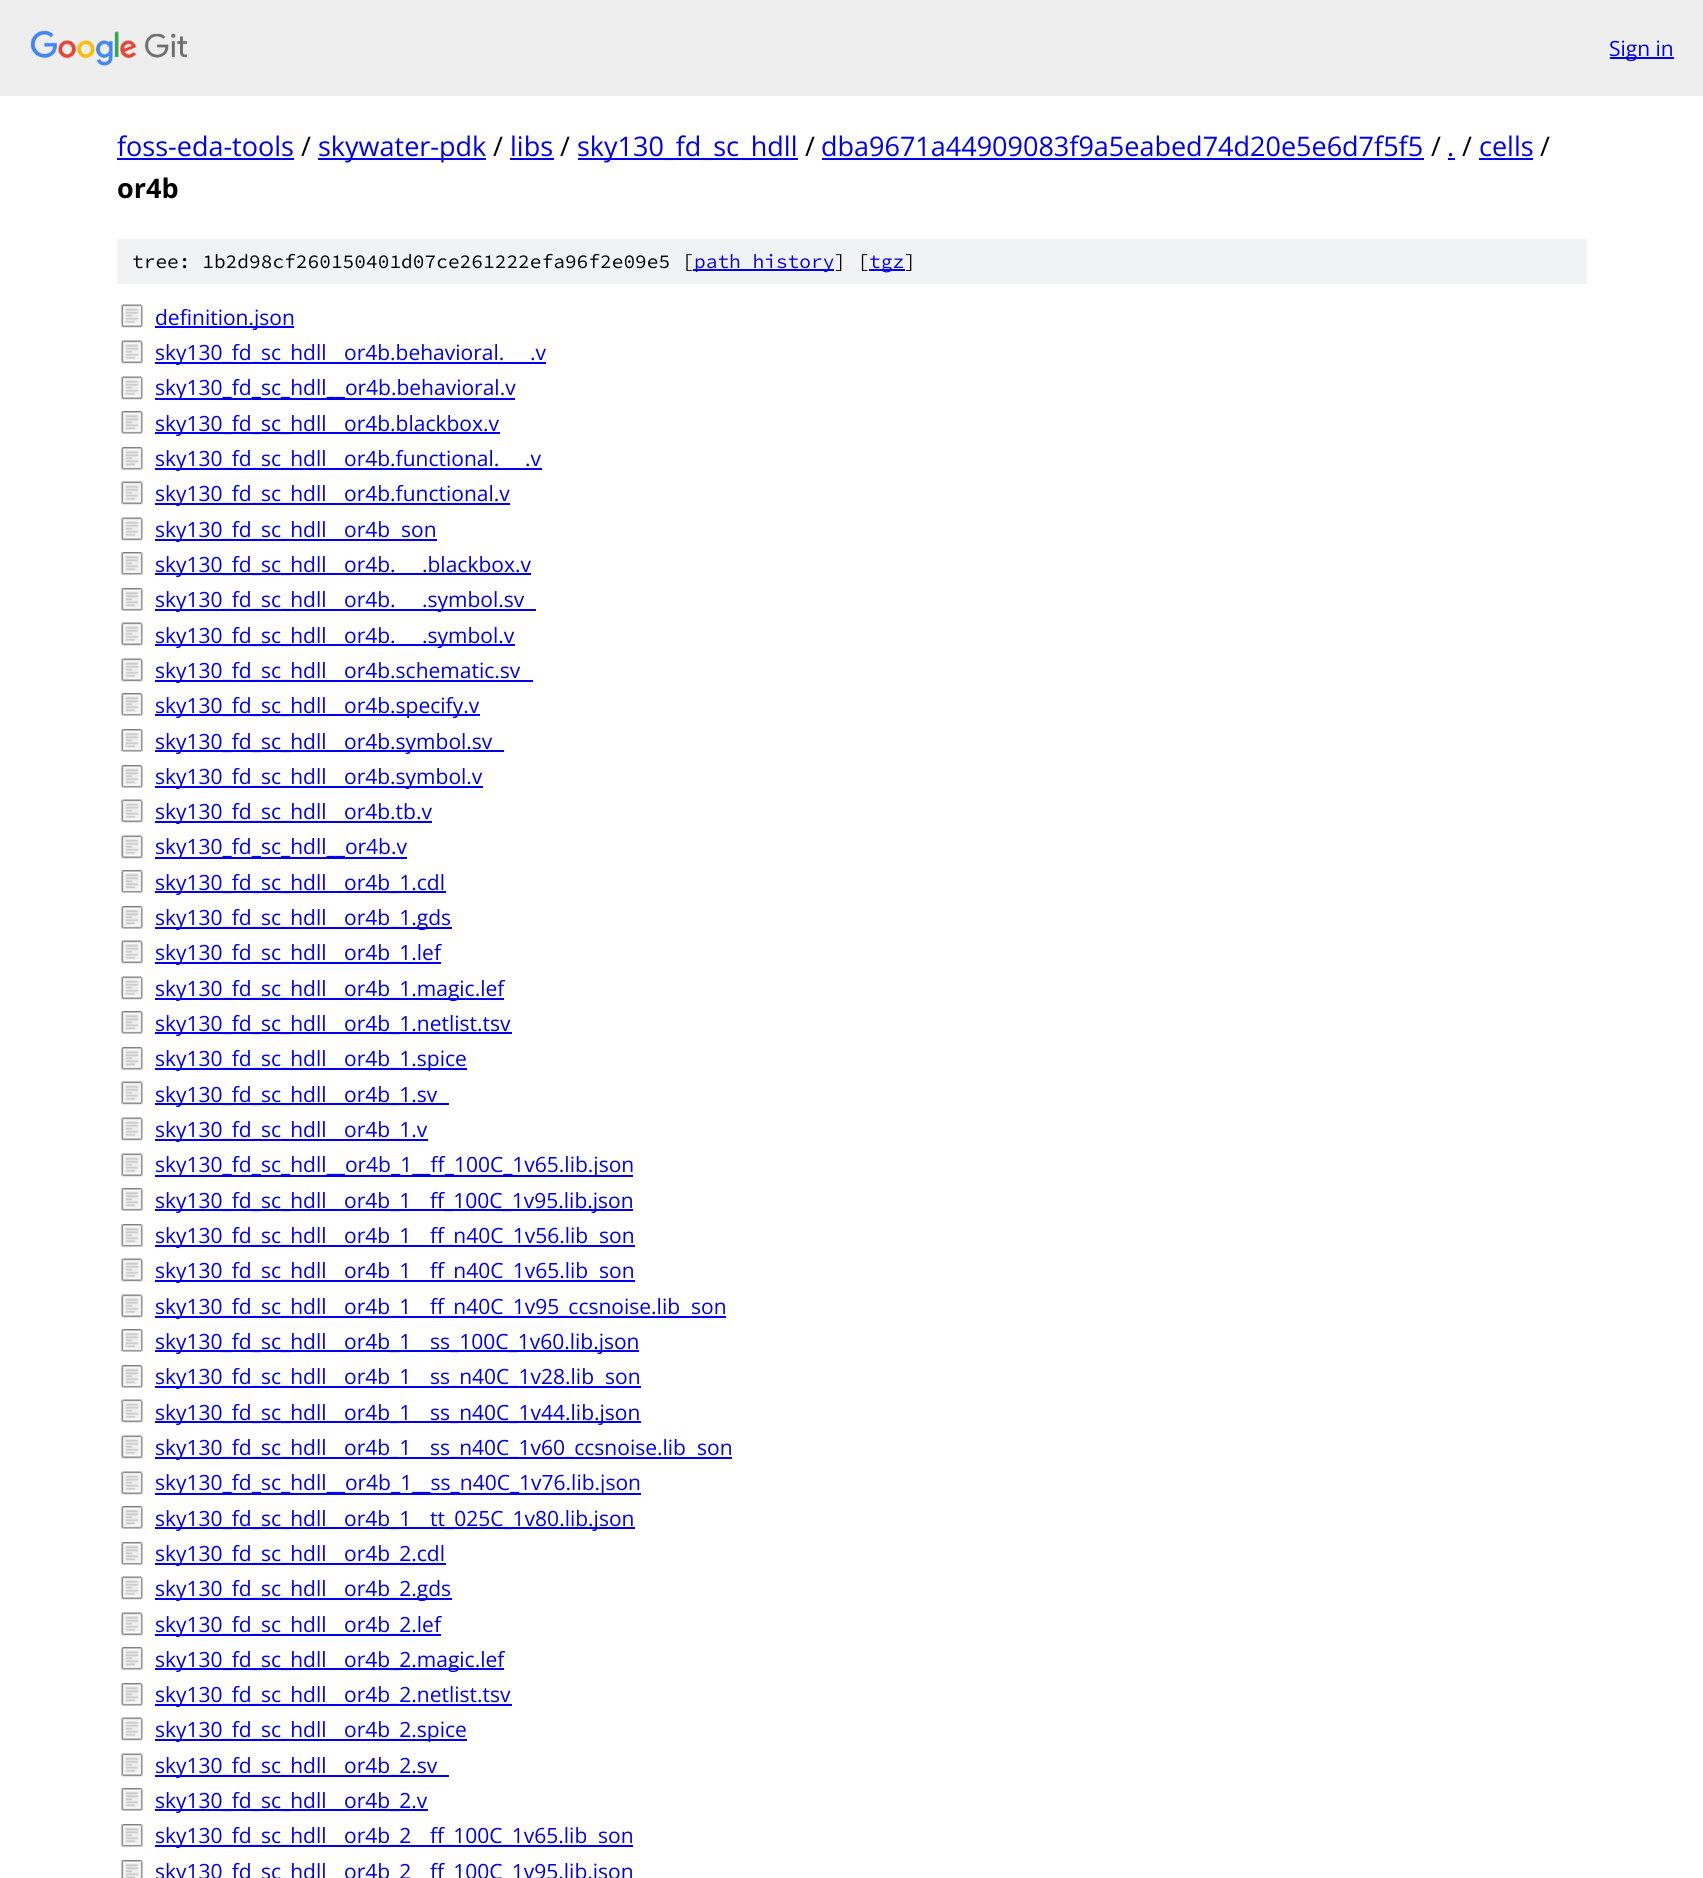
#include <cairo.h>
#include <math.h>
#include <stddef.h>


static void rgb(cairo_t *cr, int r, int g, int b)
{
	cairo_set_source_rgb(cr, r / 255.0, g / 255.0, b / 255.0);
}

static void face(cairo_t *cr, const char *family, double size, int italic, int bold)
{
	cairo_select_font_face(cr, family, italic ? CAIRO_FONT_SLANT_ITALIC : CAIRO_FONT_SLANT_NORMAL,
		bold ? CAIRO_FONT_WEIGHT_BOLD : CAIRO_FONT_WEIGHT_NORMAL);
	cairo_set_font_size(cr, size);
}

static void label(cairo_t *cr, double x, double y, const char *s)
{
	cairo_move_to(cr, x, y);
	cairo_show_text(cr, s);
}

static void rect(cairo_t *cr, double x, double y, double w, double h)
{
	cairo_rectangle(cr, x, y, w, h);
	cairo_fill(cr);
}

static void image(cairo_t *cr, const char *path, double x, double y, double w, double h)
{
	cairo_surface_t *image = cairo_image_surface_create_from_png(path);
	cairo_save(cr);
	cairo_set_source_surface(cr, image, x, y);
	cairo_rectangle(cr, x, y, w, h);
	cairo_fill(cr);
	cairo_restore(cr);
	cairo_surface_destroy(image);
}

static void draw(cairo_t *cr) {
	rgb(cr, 255, 255, 255);
	cairo_paint(cr);
	rgb(cr, 238, 238, 238);
	rect(cr, 0, 0, 1703, 96);
	image(cr, "image0.png", 30, 30, 157, 36);
	rgb(cr, 0, 0, 238);
	rect(cr, 1610, 57, 64, 2);
	face(cr, "Open Sans", 21, 0, 0);
	label(cr, 1609, 56, "Sign in");
	face(cr, "Open Sans", 27, 0, 0);
	label(cr, 117, 156, "foss-eda-tools");
	rect(cr, 117, 158, 177, 2);
	rgb(cr, 0, 0, 0);
	label(cr, 301, 156, "/");
	rgb(cr, 0, 0, 238);
	rect(cr, 318, 158, 168, 2);
	label(cr, 318, 156, "skywater-pdk");
	rgb(cr, 0, 0, 0);
	label(cr, 493, 156, "/");
	rgb(cr, 0, 0, 238);
	label(cr, 510, 156, "libs");
	rect(cr, 510, 158, 44, 2);
	rgb(cr, 0, 0, 0);
	label(cr, 560, 156, "/");
	rgb(cr, 0, 0, 238);
	rect(cr, 578, 158, 220, 2);
	label(cr, 577, 156, "sky130_fd_sc_hdll");
	rgb(cr, 0, 0, 0);
	label(cr, 805, 156, "/");
	rgb(cr, 0, 0, 238);
	label(cr, 821, 156, "dba9671a44909083f9a5eabed74d20e5e6d7f5f5");
	rect(cr, 822, 158, 602, 2);
	rgb(cr, 0, 0, 0);
	label(cr, 1431, 156, "/");
	rgb(cr, 0, 0, 238);
	label(cr, 1447, 156, ".");
	rect(cr, 1448, 158, 7, 2);
	rgb(cr, 0, 0, 0);
	label(cr, 1462, 156, "/");
	rgb(cr, 0, 0, 238);
	label(cr, 1479, 156, "cells");
	rect(cr, 1479, 158, 54, 2);
	rgb(cr, 0, 0, 0);
	label(cr, 1540, 156, "/");
	face(cr, "Open Sans", 27, 0, 1);
	label(cr, 117, 198, "or4b");
	rgb(cr, 241, 242, 243);
	rect(cr, 117, 239, 1470, 45);
	face(cr, "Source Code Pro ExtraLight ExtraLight", 19.5, 0, 0);
	rgb(cr, 0, 0, 0);
	label(cr, 132, 268, "tree: 1b2d98cf260150401d07ce261222efa96f2e09e5 [");
	rgb(cr, 0, 0, 238);
	rect(cr, 693, 269, 141, 2);
	label(cr, 694, 268, "path history");
	rgb(cr, 0, 0, 0);
	label(cr, 834, 268, "] [");
	rgb(cr, 0, 0, 238);
	rect(cr, 869, 269, 36, 2);
	label(cr, 869, 268, "tgz");
	rgb(cr, 0, 0, 0);
	label(cr, 904, 268, "]");
	image(cr, "image1.png", 121, 304, 22, 24);
	rgb(cr, 0, 0, 238);
	rect(cr, 155, 326, 139, 2);
	face(cr, "Open Sans", 21, 0, 0);
	label(cr, 155, 325, "definition.json");
	image(cr, "image1.png", 121, 340, 22, 24);
	rect(cr, 155, 362, 391, 2);
	label(cr, 155, 360, "sky130_fd_sc_hdll");
	label(cr, 344, 360, "or4b.behavioral.");
	label(cr, 530, 360, ".v");
	image(cr, "image1.png", 121, 376, 22, 24);
	rect(cr, 155, 398, 360, 2);
	label(cr, 155, 395, "sky130_fd_sc_hdll__or4b.behavioral.v");
	image(cr, "image2.png", 121, 411, 22, 23);
	rect(cr, 155, 432, 345, 2);
	label(cr, 155, 431, "sky130_fd_sc_hdll");
	label(cr, 344, 431, "or4b.blackbox.v");
	image(cr, "image2.png", 121, 447, 22, 23);
	rect(cr, 155, 468, 387, 2);
	label(cr, 155, 466, "sky130_fd_sc_hdll");
	label(cr, 344, 466, "or4b.functional.");
	label(cr, 525, 466, ".v");
	image(cr, "image1.png", 121, 481, 22, 24);
	rect(cr, 155, 503, 355, 2);
	label(cr, 155, 501, "sky130_fd_sc_hdll");
	label(cr, 344, 501, "or4b.functional.v");
	image(cr, "image1.png", 121, 517, 22, 24);
	rect(cr, 155, 539, 282, 2);
	label(cr, 155, 537, "sky130_fd_sc_hdll");
	label(cr, 344, 537, "or4b");
	label(cr, 401, 537, "son");
	image(cr, "image2.png", 121, 552, 22, 23);
	rect(cr, 155, 573, 376, 2);
	label(cr, 155, 572, "sky130_fd_sc_hdll");
	label(cr, 344, 572, "or4b.");
	label(cr, 422, 572, ".blackbox.v");
	image(cr, "image2.png", 121, 588, 22, 23);
	rect(cr, 155, 609, 381, 2);
	label(cr, 155, 607, "sky130_fd_sc_hdll");
	label(cr, 344, 607, "or4b.");
	label(cr, 422, 607, ".symbol.sv");
	image(cr, "image1.png", 121, 622, 22, 24);
	rect(cr, 155, 644, 360, 2);
	label(cr, 155, 643, "sky130_fd_sc_hdll");
	label(cr, 344, 643, "or4b.");
	label(cr, 422, 643, ".symbol.v");
	image(cr, "image1.png", 121, 658, 22, 24);
	rect(cr, 155, 680, 378, 2);
	label(cr, 155, 678, "sky130_fd_sc_hdll");
	label(cr, 344, 678, "or4b.schematic.sv");
	image(cr, "image2.png", 121, 693, 22, 23);
	rect(cr, 155, 714, 325, 2);
	label(cr, 155, 713, "sky130_fd_sc_hdll");
	label(cr, 344, 713, "or4b.specify.v");
	image(cr, "image2.png", 121, 729, 22, 23);
	rect(cr, 155, 750, 349, 2);
	label(cr, 155, 749, "sky130_fd_sc_hdll");
	label(cr, 344, 749, "or4b.symbol.sv");
	image(cr, "image2.png", 121, 765, 22, 23);
	rect(cr, 155, 786, 328, 2);
	label(cr, 155, 784, "sky130_fd_sc_hdll");
	label(cr, 344, 784, "or4b.symbol.v");
	image(cr, "image1.png", 121, 799, 22, 24);
	rect(cr, 155, 821, 277, 2);
	label(cr, 155, 819, "sky130_fd_sc_hdll");
	label(cr, 344, 819, "or4b.tb.v");
	image(cr, "image1.png", 121, 835, 22, 24);
	rect(cr, 155, 857, 252, 2);
	label(cr, 155, 854, "sky130_fd_sc_hdll__or4b.v");
	image(cr, "image2.png", 121, 870, 22, 23);
	rect(cr, 155, 891, 291, 2);
	label(cr, 155, 890, "sky130_fd_sc_hdll");
	label(cr, 344, 890, "or4b_1.cdl");
	image(cr, "image2.png", 121, 906, 22, 23);
	rect(cr, 155, 927, 297, 2);
	label(cr, 155, 925, "sky130_fd_sc_hdll");
	label(cr, 344, 925, "or4b_1.gds");
	image(cr, "image1.png", 121, 940, 22, 24);
	rect(cr, 155, 962, 286, 2);
	label(cr, 155, 960, "sky130_fd_sc_hdll");
	label(cr, 344, 960, "or4b_1.lef");
	image(cr, "image1.png", 121, 976, 22, 24);
	rect(cr, 155, 998, 349, 2);
	label(cr, 155, 996, "sky130_fd_sc_hdll");
	label(cr, 344, 996, "or4b_1.magic.lef");
	image(cr, "image2.png", 121, 1011, 22, 23);
	rect(cr, 155, 1032, 357, 2);
	label(cr, 155, 1031, "sky130_fd_sc_hdll");
	label(cr, 344, 1031, "or4b_1.netlist.tsv");
	image(cr, "image2.png", 121, 1047, 22, 23);
	rect(cr, 155, 1068, 312, 2);
	label(cr, 155, 1066, "sky130_fd_sc_hdll");
	label(cr, 344, 1066, "or4b_1.spice");
	image(cr, "image1.png", 121, 1081, 22, 24);
	rect(cr, 155, 1103, 294, 2);
	label(cr, 155, 1102, "sky130_fd_sc_hdll");
	label(cr, 344, 1102, "or4b_1.sv");
	image(cr, "image1.png", 121, 1117, 22, 24);
	rect(cr, 155, 1139, 273, 2);
	label(cr, 155, 1137, "sky130_fd_sc_hdll");
	label(cr, 344, 1137, "or4b_1.v");
	image(cr, "image1.png", 121, 1153, 22, 24);
	rect(cr, 155, 1175, 478, 2);
	label(cr, 155, 1172, "sky130_fd_sc_hdll__or4b_1__ff_100C_1v65.lib.json");
	image(cr, "image2.png", 121, 1188, 22, 23);
	rect(cr, 155, 1209, 478, 2);
	label(cr, 155, 1208, "sky130_fd_sc_hdll");
	label(cr, 344, 1208, "or4b_1");
	label(cr, 430, 1208, "ff_100C_1v95.lib.json");
	image(cr, "image2.png", 121, 1224, 22, 23);
	rect(cr, 155, 1245, 480, 2);
	label(cr, 155, 1243, "sky130_fd_sc_hdll");
	label(cr, 344, 1243, "or4b_1");
	label(cr, 430, 1243, "ff_n40C_1v56.lib");
	label(cr, 599, 1243, "son");
	image(cr, "image1.png", 121, 1258, 22, 24);
	rect(cr, 155, 1280, 480, 2);
	label(cr, 155, 1278, "sky130_fd_sc_hdll");
	label(cr, 344, 1278, "or4b_1");
	label(cr, 430, 1278, "ff_n40C_1v65.lib");
	label(cr, 599, 1278, "son");
	image(cr, "image1.png", 121, 1294, 22, 24);
	rect(cr, 155, 1316, 571, 2);
	label(cr, 155, 1314, "sky130_fd_sc_hdll");
	label(cr, 344, 1314, "or4b_1");
	label(cr, 430, 1314, "ff_n40C_1v95_ccsnoise.lib");
	label(cr, 691, 1314, "son");
	image(cr, "image2.png", 121, 1329, 22, 23);
	rect(cr, 155, 1350, 484, 2);
	label(cr, 155, 1349, "sky130_fd_sc_hdll");
	label(cr, 344, 1349, "or4b_1");
	label(cr, 430, 1349, "ss_100C_1v60.lib.json");
	image(cr, "image2.png", 121, 1365, 22, 23);
	rect(cr, 155, 1386, 486, 2);
	label(cr, 155, 1384, "sky130_fd_sc_hdll");
	label(cr, 344, 1384, "or4b_1");
	label(cr, 430, 1384, "ss_n40C_1v28.lib");
	label(cr, 605, 1384, "son");
	image(cr, "image1.png", 121, 1399, 22, 24);
	rect(cr, 155, 1421, 486, 2);
	label(cr, 155, 1420, "sky130_fd_sc_hdll");
	label(cr, 344, 1420, "or4b_1");
	label(cr, 430, 1420, "ss_n40C_1v44.lib.json");
	image(cr, "image1.png", 121, 1435, 22, 24);
	rect(cr, 155, 1457, 577, 2);
	label(cr, 155, 1455, "sky130_fd_sc_hdll");
	label(cr, 344, 1455, "or4b_1");
	label(cr, 430, 1455, "ss_n40C_1v60_ccsnoise.lib");
	label(cr, 697, 1455, "son");
	image(cr, "image1.png", 121, 1471, 22, 24);
	rect(cr, 155, 1493, 486, 2);
	label(cr, 155, 1490, "sky130_fd_sc_hdll__or4b_1__ss_n40C_1v76.lib.json");
	image(cr, "image2.png", 121, 1506, 22, 23);
	rect(cr, 155, 1527, 480, 2);
	label(cr, 155, 1526, "sky130_fd_sc_hdll");
	label(cr, 344, 1526, "or4b_1");
	label(cr, 430, 1526, "tt_025C_1v80.lib.json");
	image(cr, "image2.png", 121, 1542, 22, 23);
	rect(cr, 155, 1563, 291, 2);
	label(cr, 155, 1561, "sky130_fd_sc_hdll");
	label(cr, 344, 1561, "or4b_2.cdl");
	image(cr, "image1.png", 121, 1576, 22, 24);
	rect(cr, 155, 1598, 297, 2);
	label(cr, 155, 1596, "sky130_fd_sc_hdll");
	label(cr, 344, 1596, "or4b_2.gds");
	image(cr, "image1.png", 121, 1612, 22, 24);
	rect(cr, 155, 1634, 286, 2);
	label(cr, 155, 1632, "sky130_fd_sc_hdll");
	label(cr, 344, 1632, "or4b_2.lef");
	image(cr, "image2.png", 121, 1647, 22, 23);
	rect(cr, 155, 1668, 349, 2);
	label(cr, 155, 1667, "sky130_fd_sc_hdll");
	label(cr, 344, 1667, "or4b_2.magic.lef");
	image(cr, "image2.png", 121, 1683, 22, 23);
	rect(cr, 155, 1704, 357, 2);
	label(cr, 155, 1702, "sky130_fd_sc_hdll");
	label(cr, 344, 1702, "or4b_2.netlist.tsv");
	image(cr, "image1.png", 121, 1717, 22, 24);
	rect(cr, 155, 1739, 312, 2);
	label(cr, 155, 1737, "sky130_fd_sc_hdll");
	label(cr, 344, 1737, "or4b_2.spice");
	image(cr, "image1.png", 121, 1753, 22, 24);
	rect(cr, 155, 1775, 294, 2);
	label(cr, 155, 1773, "sky130_fd_sc_hdll");
	label(cr, 344, 1773, "or4b_2.sv");
	image(cr, "image2.png", 121, 1788, 22, 23);
	rect(cr, 155, 1809, 273, 2);
	label(cr, 155, 1808, "sky130_fd_sc_hdll");
	label(cr, 344, 1808, "or4b_2.v");
	image(cr, "image2.png", 121, 1824, 22, 23);
	rect(cr, 155, 1845, 478, 2);
	label(cr, 155, 1843, "sky130_fd_sc_hdll");
	label(cr, 344, 1843, "or4b_2");
	label(cr, 430, 1843, "ff_100C_1v65.lib");
	label(cr, 598, 1843, "son");
	image(cr, "image3.png", 121, 1860, 22, 18);
	label(cr, 155, 1879, "sky130_fd_sc_hdll");
	label(cr, 344, 1879, "or4b_2");
	label(cr, 430, 1879, "ff_100C_1v95.lib.json");
}

int main(void) {
	cairo_surface_t *surface = cairo_image_surface_create(CAIRO_FORMAT_RGB24, 1703, 1878);
	cairo_t *cr = cairo_create(surface);
	cairo_font_options_t *options = cairo_font_options_create();
	cairo_font_options_set_hint_metrics(options, CAIRO_HINT_METRICS_OFF);
	cairo_font_options_set_hint_style(options, CAIRO_HINT_STYLE_NONE);
	cairo_set_font_options(cr, options);
	cairo_set_miter_limit(cr, 4);
	draw(cr);
	cairo_surface_write_to_png(surface, "render.png");
	cairo_font_options_destroy(options);
	cairo_destroy(cr);
	cairo_surface_destroy(surface);
	return 0;
}
